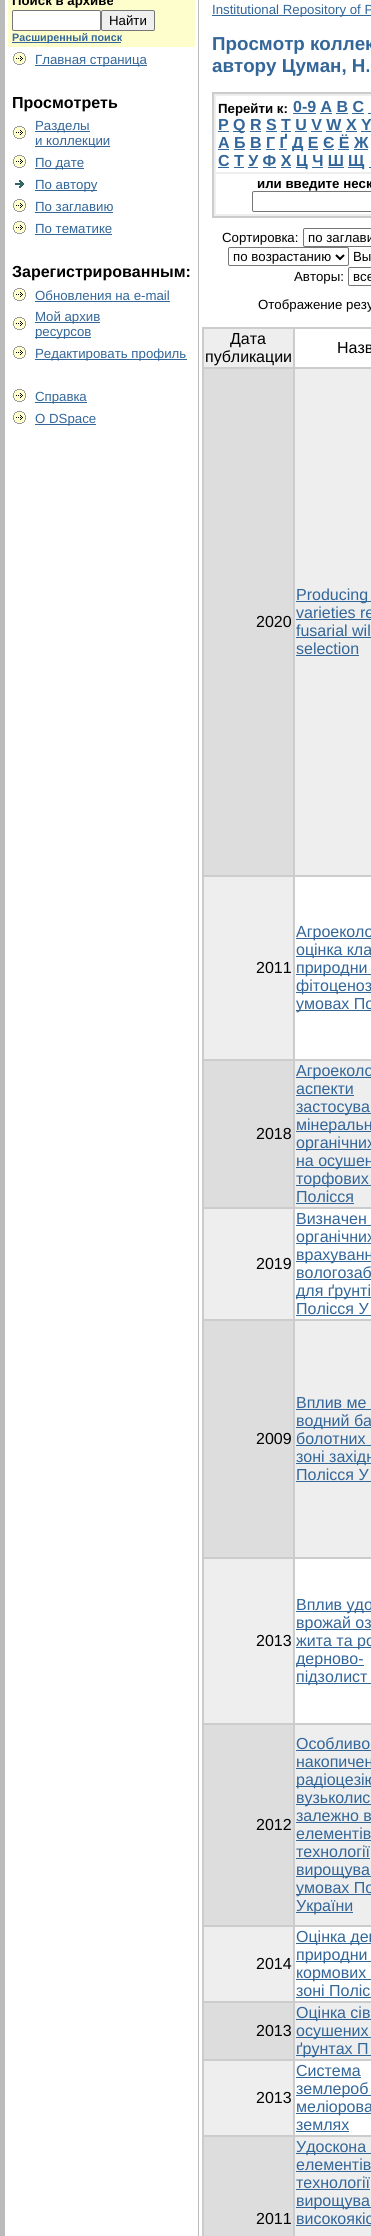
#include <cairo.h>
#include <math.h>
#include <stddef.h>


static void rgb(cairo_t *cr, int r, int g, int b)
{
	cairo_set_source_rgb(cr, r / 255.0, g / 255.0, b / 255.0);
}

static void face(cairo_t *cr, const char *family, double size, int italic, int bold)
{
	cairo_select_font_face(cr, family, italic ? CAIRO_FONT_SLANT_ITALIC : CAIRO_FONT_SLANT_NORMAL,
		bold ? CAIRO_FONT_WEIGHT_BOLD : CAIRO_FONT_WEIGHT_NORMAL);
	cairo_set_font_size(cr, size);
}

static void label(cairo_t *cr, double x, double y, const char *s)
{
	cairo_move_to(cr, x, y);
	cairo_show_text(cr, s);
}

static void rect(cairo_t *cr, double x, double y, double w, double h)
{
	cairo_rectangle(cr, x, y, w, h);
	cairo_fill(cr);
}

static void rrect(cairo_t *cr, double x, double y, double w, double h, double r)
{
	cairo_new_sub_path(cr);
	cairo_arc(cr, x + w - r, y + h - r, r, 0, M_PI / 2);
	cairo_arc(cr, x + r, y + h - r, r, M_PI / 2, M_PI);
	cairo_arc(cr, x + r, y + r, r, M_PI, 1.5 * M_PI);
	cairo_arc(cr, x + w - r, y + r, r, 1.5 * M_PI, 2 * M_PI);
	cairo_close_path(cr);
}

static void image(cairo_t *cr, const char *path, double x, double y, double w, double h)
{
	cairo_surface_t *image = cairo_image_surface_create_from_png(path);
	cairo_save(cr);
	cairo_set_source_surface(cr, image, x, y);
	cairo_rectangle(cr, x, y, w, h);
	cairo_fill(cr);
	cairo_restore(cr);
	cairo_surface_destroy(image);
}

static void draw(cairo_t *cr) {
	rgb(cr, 187, 187, 187);
	cairo_paint(cr);
	rgb(cr, 255, 255, 255);
	rect(cr, 5, 0, 193, 2236);
	rgb(cr, 254, 254, 205);
	rect(cr, 8, 0, 187, 47);
	face(cr, "Liberation Sans", 13.25, 0, 1);
	rgb(cr, 0, 0, 0);
	label(cr, 12, 5, "Поиск в архиве");
	rgb(cr, 255, 255, 255);
	rrect(cr, 12.5, 10.5, 88, 20, 1.5);
	cairo_fill_preserve(cr);
	rgb(cr, 118, 118, 118);
	cairo_set_line_width(cr, 1);
	cairo_stroke(cr);
	rgb(cr, 239, 239, 239);
	rrect(cr, 101.5, 10.5, 53, 20, 1.5);
	cairo_fill_preserve(cr);
	rgb(cr, 118, 118, 118);
	cairo_stroke(cr);
	face(cr, "Liberation Sans", 13.25, 0, 0);
	rgb(cr, 0, 0, 0);
	label(cr, 109, 25, "Найти");
	rgb(cr, 51, 102, 153);
	rect(cr, 12, 42, 109, 1);
	face(cr, "Liberation Sans", 10.75, 0, 1);
	label(cr, 12, 41, "Расширенный поиск");
	image(cr, "image0.png", 13, 52, 13, 13);
	rect(cr, 35, 65, 112, 1);
	face(cr, "Liberation Sans", 13.25, 0, 0);
	label(cr, 35, 64, "Главная страница");
	face(cr, "Liberation Sans", 16, 0, 1);
	rgb(cr, 0, 0, 0);
	label(cr, 12, 108, "Просмотреть");
	image(cr, "image0.png", 13, 126, 13, 13);
	rgb(cr, 51, 102, 153);
	rect(cr, 35, 131, 55, 1);
	face(cr, "Liberation Sans", 13.25, 0, 0);
	label(cr, 35, 130, "Разделы");
	rect(cr, 35, 146, 75, 1);
	label(cr, 35, 145, "и коллекции");
	image(cr, "image0.png", 13, 155, 13, 13);
	rect(cr, 35, 168, 49, 1);
	label(cr, 35, 167, "По дате");
	image(cr, "image1.png", 15, 180, 9, 8);
	rect(cr, 35, 190, 62, 1);
	label(cr, 35, 189, "По автору");
	image(cr, "image0.png", 13, 199, 13, 13);
	label(cr, 35, 211, "По заглавию");
	rect(cr, 35, 212, 78, 1);
	image(cr, "image0.png", 13, 221, 13, 13);
	label(cr, 35, 233, "По тематике");
	rect(cr, 35, 234, 77, 1);
	face(cr, "Liberation Sans", 16, 0, 1);
	rgb(cr, 0, 0, 0);
	label(cr, 12, 277, "Зарегистрированным:");
	image(cr, "image0.png", 13, 288, 13, 13);
	face(cr, "Liberation Sans", 13.25, 0, 0);
	rgb(cr, 51, 102, 153);
	label(cr, 35, 300, "Обновления на e-mail");
	rect(cr, 35, 301, 135, 1);
	image(cr, "image0.png", 13, 317, 13, 13);
	rect(cr, 35, 322, 65, 1);
	label(cr, 35, 321, "Мой архив");
	rect(cr, 35, 337, 56, 1);
	label(cr, 35, 336, "ресурсов");
	image(cr, "image0.png", 13, 346, 13, 13);
	rect(cr, 35, 359, 152, 1);
	label(cr, 35, 358, "Редактировать профиль");
	image(cr, "image0.png", 13, 389, 13, 13);
	rect(cr, 35, 402, 52, 1);
	label(cr, 35, 401, "Справка");
	image(cr, "image0.png", 13, 411, 13, 13);
	rect(cr, 35, 424, 61, 1);
	label(cr, 35, 423, "О DSpace");
	rgb(cr, 255, 255, 255);
	rect(cr, 199, 0, 172, 2236);
	rgb(cr, 51, 102, 153);
	rect(cr, 212, 15, 159, 1);
	label(cr, 212, 14, "Institutional Repository of P");
	face(cr, "Liberation Sans", 18.75, 0, 1);
	label(cr, 212, 50, "Просмотр коллек");
	label(cr, 212, 72, "автору Цуман, Н.");
	rgb(cr, 204, 204, 204);
	rect(cr, 212, 92, 159, 126);
	rgb(cr, 238, 238, 238);
	rect(cr, 214, 94, 157, 122);
	rgb(cr, 255, 255, 255);
	rect(cr, 216, 96, 155, 76);
	face(cr, "Liberation Sans", 13.25, 0, 1);
	rgb(cr, 0, 0, 0);
	label(cr, 218, 113, "Перейти к:");
	face(cr, "Liberation Sans", 16, 0, 1);
	rgb(cr, 51, 102, 153);
	label(cr, 293, 112, "0-9 A B C");
	rect(cr, 293, 113, 23, 1);
	rect(cr, 320, 113, 12, 1);
	rect(cr, 336, 113, 12, 1);
	rect(cr, 352, 113, 12, 1);
	rect(cr, 368, 113, 3, 1);
	label(cr, 218, 130, "P");
	rect(cr, 218, 131, 11, 1);
	rect(cr, 233, 131, 12, 1);
	label(cr, 233, 130, "Q R S T U V W X Y");
	rect(cr, 250, 131, 11, 1);
	rect(cr, 266, 131, 11, 1);
	rect(cr, 281, 131, 10, 1);
	rect(cr, 295, 131, 12, 1);
	rect(cr, 311, 131, 11, 1);
	rect(cr, 326, 131, 16, 1);
	rect(cr, 346, 131, 11, 1);
	rect(cr, 361, 131, 10, 1);
	label(cr, 218, 148, "А Б В Г Ґ");
	rect(cr, 218, 149, 11, 1);
	rect(cr, 292, 149, 11, 1);
	label(cr, 292, 148, "Д Е Є Ё Ж");
	rect(cr, 234, 149, 11, 1);
	rect(cr, 250, 149, 11, 1);
	rect(cr, 266, 149, 9, 1);
	rect(cr, 279, 149, 8, 1);
	rect(cr, 308, 149, 10, 1);
	rect(cr, 323, 149, 11, 1);
	rect(cr, 338, 149, 11, 1);
	rect(cr, 354, 149, 14, 1);
	label(cr, 218, 166, "С Т У Ф Х");
	rect(cr, 218, 167, 11, 1);
	rect(cr, 296, 167, 11, 1);
	label(cr, 296, 166, "Ц Ч Ш");
	rect(cr, 348, 167, 16, 1);
	label(cr, 348, 166, "Щ");
	rect(cr, 234, 167, 10, 1);
	rect(cr, 248, 167, 10, 1);
	rect(cr, 263, 167, 13, 1);
	rect(cr, 281, 167, 10, 1);
	rect(cr, 312, 167, 11, 1);
	rect(cr, 328, 167, 16, 1);
	rect(cr, 369, 167, 2, 1);
	rgb(cr, 255, 255, 255);
	rect(cr, 216, 174, 155, 40);
	face(cr, "Liberation Sans", 13.25, 0, 1);
	rgb(cr, 0, 0, 0);
	label(cr, 257, 188, "или введите неск");
	rrect(cr, 252.5, 191.5, 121, 20, 1.5);
	rgb(cr, 118, 118, 118);
	cairo_stroke(cr);
	face(cr, "Liberation Sans", 13.25, 0, 0);
	rgb(cr, 0, 0, 0);
	label(cr, 222, 242, "Сортировка:");
	rrect(cr, 303.5, 228.5, 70, 18, 1.5);
	rgb(cr, 118, 118, 118);
	cairo_stroke(cr);
	rgb(cr, 0, 0, 0);
	label(cr, 308, 242, "по заглави");
	rrect(cr, 228.5, 247.5, 120, 18, 1.5);
	rgb(cr, 118, 118, 118);
	cairo_stroke(cr);
	cairo_new_path(cr);
	cairo_move_to(cr, 336, 255);
	cairo_line_to(cr, 340, 259);
	cairo_line_to(cr, 344, 255);
	rgb(cr, 0, 0, 0);
	cairo_set_line_width(cr, 2);
	cairo_stroke(cr);
	label(cr, 233, 261, "по возрастанию");
	label(cr, 353, 261, "Вы");
	label(cr, 294, 281, "Авторы:");
	rrect(cr, 348.5, 267.5, 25, 18, 1.5);
	rgb(cr, 118, 118, 118);
	cairo_set_line_width(cr, 1);
	cairo_stroke(cr);
	rgb(cr, 0, 0, 0);
	label(cr, 353, 281, "все");
	label(cr, 258, 309, "Отображение резу");
	rgb(cr, 204, 204, 204);
	rect(cr, 202, 327, 169, 1909);
	rgb(cr, 238, 238, 238);
	rect(cr, 204, 329, 89, 38);
	face(cr, "Liberation Sans", 16, 0, 0);
	rgb(cr, 0, 0, 0);
	label(cr, 230, 344, "Дата");
	label(cr, 205, 362, "публикации");
	rgb(cr, 255, 255, 255);
	rect(cr, 295, 329, 76, 38);
	rgb(cr, 0, 0, 0);
	label(cr, 337, 353, "Назв");
	rgb(cr, 221, 221, 221);
	rect(cr, 204, 369, 89, 506);
	rgb(cr, 0, 0, 0);
	label(cr, 256, 627, "2020");
	rgb(cr, 238, 238, 238);
	rect(cr, 295, 369, 76, 506);
	rgb(cr, 51, 102, 153);
	rect(cr, 296, 601, 75, 1);
	label(cr, 296, 600, "Producing");
	label(cr, 296, 618, "varieties re");
	rect(cr, 296, 619, 75, 1);
	label(cr, 296, 636, "fusarial wil");
	rect(cr, 296, 637, 75, 1);
	label(cr, 296, 654, "selection");
	rect(cr, 296, 655, 63, 1);
	rgb(cr, 238, 238, 238);
	rect(cr, 204, 877, 89, 182);
	rgb(cr, 0, 0, 0);
	label(cr, 256, 973, "2011");
	rgb(cr, 255, 255, 255);
	rect(cr, 295, 877, 76, 182);
	rgb(cr, 51, 102, 153);
	rect(cr, 296, 938, 75, 1);
	label(cr, 296, 937, "Агроеколо");
	rect(cr, 296, 956, 75, 1);
	label(cr, 296, 955, "оцінка кла");
	rect(cr, 296, 974, 75, 1);
	label(cr, 296, 973, "природни");
	rect(cr, 296, 992, 75, 1);
	label(cr, 296, 991, "фітоценоз");
	rect(cr, 296, 1010, 75, 1);
	label(cr, 296, 1009, "умовах По");
	rgb(cr, 221, 221, 221);
	rect(cr, 204, 1061, 89, 146);
	rgb(cr, 0, 0, 0);
	label(cr, 256, 1139, "2018");
	rgb(cr, 238, 238, 238);
	rect(cr, 295, 1061, 76, 146);
	rgb(cr, 51, 102, 153);
	rect(cr, 296, 1077, 75, 1);
	label(cr, 296, 1076, "Агроеколо");
	label(cr, 296, 1094, "аспекти");
	rect(cr, 296, 1095, 58, 1);
	rect(cr, 296, 1113, 75, 1);
	label(cr, 296, 1112, "застосува");
	rect(cr, 296, 1131, 75, 1);
	label(cr, 296, 1130, "мінеральн");
	rect(cr, 296, 1149, 75, 1);
	label(cr, 296, 1148, "органічних");
	rect(cr, 296, 1167, 75, 1);
	label(cr, 296, 1166, "на осушен");
	rect(cr, 296, 1185, 75, 1);
	label(cr, 296, 1184, "торфових");
	label(cr, 296, 1202, "Полісся");
	rect(cr, 296, 1203, 58, 1);
	rgb(cr, 238, 238, 238);
	rect(cr, 204, 1209, 89, 110);
	rgb(cr, 0, 0, 0);
	label(cr, 256, 1269, "2019");
	rgb(cr, 255, 255, 255);
	rect(cr, 295, 1209, 76, 110);
	rgb(cr, 51, 102, 153);
	label(cr, 296, 1224, "Визначен");
	rect(cr, 296, 1225, 75, 1);
	rect(cr, 296, 1243, 75, 1);
	label(cr, 296, 1242, "органічних");
	rect(cr, 296, 1261, 75, 1);
	label(cr, 296, 1260, "врахуванн");
	label(cr, 296, 1278, "вологозаб");
	rect(cr, 296, 1279, 75, 1);
	rect(cr, 296, 1297, 75, 1);
	label(cr, 296, 1296, "для ґрунті");
	label(cr, 296, 1314, "Полісся У");
	rect(cr, 296, 1315, 75, 1);
	rgb(cr, 221, 221, 221);
	rect(cr, 204, 1321, 89, 236);
	rgb(cr, 0, 0, 0);
	label(cr, 256, 1444, "2009");
	rgb(cr, 238, 238, 238);
	rect(cr, 295, 1321, 76, 236);
	rgb(cr, 51, 102, 153);
	label(cr, 296, 1408, "Вплив ме");
	rect(cr, 296, 1409, 75, 1);
	rect(cr, 296, 1427, 75, 1);
	label(cr, 296, 1426, "водний ба");
	label(cr, 296, 1444, "болотних");
	rect(cr, 296, 1445, 75, 1);
	rect(cr, 296, 1463, 75, 1);
	label(cr, 296, 1462, "зоні західн");
	label(cr, 296, 1480, "Полісся У");
	rect(cr, 296, 1481, 75, 1);
	rgb(cr, 238, 238, 238);
	rect(cr, 204, 1559, 89, 164);
	rgb(cr, 0, 0, 0);
	label(cr, 256, 1646, "2013");
	rgb(cr, 255, 255, 255);
	rect(cr, 295, 1559, 76, 164);
	rgb(cr, 51, 102, 153);
	rect(cr, 296, 1611, 75, 1);
	label(cr, 296, 1610, "Вплив удо");
	rect(cr, 296, 1629, 75, 1);
	label(cr, 296, 1628, "врожай оз");
	rect(cr, 296, 1647, 75, 1);
	label(cr, 296, 1646, "жита та ро");
	rect(cr, 296, 1665, 68, 1);
	label(cr, 296, 1664, "дерново-");
	rect(cr, 296, 1683, 75, 1);
	label(cr, 296, 1682, "підзолист");
	rgb(cr, 221, 221, 221);
	rect(cr, 204, 1725, 89, 200);
	rgb(cr, 0, 0, 0);
	label(cr, 256, 1830, "2012");
	rgb(cr, 238, 238, 238);
	rect(cr, 295, 1725, 76, 200);
	rgb(cr, 51, 102, 153);
	label(cr, 296, 1749, "Особливо");
	rect(cr, 296, 1750, 75, 1);
	label(cr, 296, 1767, "накопичен");
	rect(cr, 296, 1768, 75, 1);
	rect(cr, 296, 1786, 75, 1);
	label(cr, 296, 1785, "радіоцезію");
	rect(cr, 296, 1804, 75, 1);
	label(cr, 296, 1803, "вузьколис");
	label(cr, 296, 1821, "залежно в");
	rect(cr, 296, 1822, 75, 1);
	label(cr, 296, 1839, "елементів");
	rect(cr, 296, 1840, 75, 1);
	label(cr, 296, 1857, "технології");
	rect(cr, 296, 1858, 74, 1);
	rect(cr, 296, 1876, 75, 1);
	label(cr, 296, 1875, "вирощува");
	rect(cr, 296, 1894, 75, 1);
	label(cr, 296, 1893, "умовах По");
	rect(cr, 296, 1912, 57, 1);
	label(cr, 296, 1911, "України");
	rgb(cr, 238, 238, 238);
	rect(cr, 204, 1927, 89, 74);
	rgb(cr, 0, 0, 0);
	label(cr, 256, 1969, "2014");
	rgb(cr, 255, 255, 255);
	rect(cr, 295, 1927, 76, 74);
	rgb(cr, 51, 102, 153);
	rect(cr, 296, 1943, 75, 1);
	label(cr, 296, 1942, "Оцінка дег");
	rect(cr, 296, 1961, 75, 1);
	label(cr, 296, 1960, "природни");
	rect(cr, 296, 1979, 75, 1);
	label(cr, 296, 1978, "кормових");
	label(cr, 296, 1996, "зоні Поліс");
	rect(cr, 296, 1997, 75, 1);
	rgb(cr, 221, 221, 221);
	rect(cr, 204, 2003, 89, 56);
	rgb(cr, 0, 0, 0);
	label(cr, 256, 2036, "2013");
	rgb(cr, 238, 238, 238);
	rect(cr, 295, 2003, 76, 56);
	rgb(cr, 51, 102, 153);
	rect(cr, 296, 2019, 75, 1);
	label(cr, 296, 2018, "Оцінка сів");
	rect(cr, 296, 2037, 75, 1);
	label(cr, 296, 2036, "осушених");
	rect(cr, 296, 2055, 75, 1);
	label(cr, 296, 2054, "ґрунтах П");
	rgb(cr, 238, 238, 238);
	rect(cr, 204, 2061, 89, 74);
	rgb(cr, 0, 0, 0);
	label(cr, 256, 2103, "2013");
	rgb(cr, 255, 255, 255);
	rect(cr, 295, 2061, 76, 74);
	rgb(cr, 51, 102, 153);
	label(cr, 296, 2076, "Система");
	rect(cr, 296, 2077, 65, 1);
	rect(cr, 296, 2095, 75, 1);
	label(cr, 296, 2094, "землероб");
	rect(cr, 296, 2113, 75, 1);
	label(cr, 296, 2112, "меліорова");
	label(cr, 296, 2130, "землях");
	rect(cr, 296, 2131, 53, 1);
	rgb(cr, 221, 221, 221);
	rect(cr, 204, 2137, 89, 99);
	rgb(cr, 0, 0, 0);
	label(cr, 256, 2224, "2011");
	rgb(cr, 238, 238, 238);
	rect(cr, 295, 2137, 76, 99);
	rgb(cr, 51, 102, 153);
	rect(cr, 296, 2153, 75, 1);
	label(cr, 296, 2152, "Удоскона");
	label(cr, 296, 2170, "елементів");
	rect(cr, 296, 2171, 75, 1);
	label(cr, 296, 2188, "технології");
	rect(cr, 296, 2189, 74, 1);
	rect(cr, 296, 2207, 75, 1);
	label(cr, 296, 2206, "вирощува");
	label(cr, 296, 2224, "високоякіс");
	rect(cr, 296, 2225, 75, 1);
}

int main(void) {
	cairo_surface_t *surface = cairo_image_surface_create(CAIRO_FORMAT_RGB24, 371, 2236);
	cairo_t *cr = cairo_create(surface);
	cairo_font_options_t *options = cairo_font_options_create();
	cairo_font_options_set_hint_metrics(options, CAIRO_HINT_METRICS_OFF);
	cairo_font_options_set_hint_style(options, CAIRO_HINT_STYLE_NONE);
	cairo_set_font_options(cr, options);
	cairo_set_miter_limit(cr, 4);
	draw(cr);
	cairo_surface_write_to_png(surface, "render.png");
	cairo_font_options_destroy(options);
	cairo_destroy(cr);
	cairo_surface_destroy(surface);
	return 0;
}
